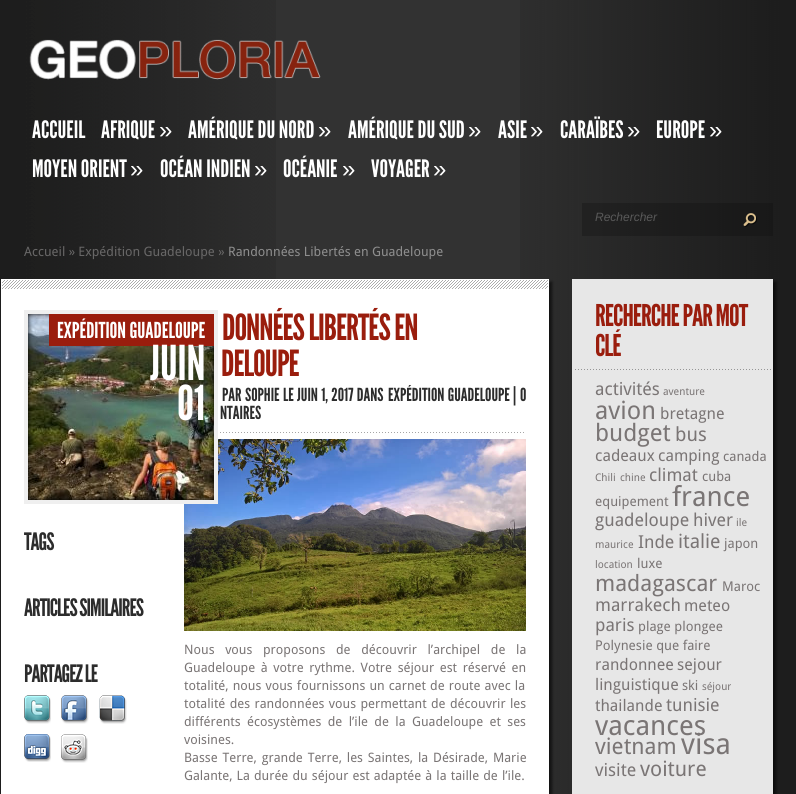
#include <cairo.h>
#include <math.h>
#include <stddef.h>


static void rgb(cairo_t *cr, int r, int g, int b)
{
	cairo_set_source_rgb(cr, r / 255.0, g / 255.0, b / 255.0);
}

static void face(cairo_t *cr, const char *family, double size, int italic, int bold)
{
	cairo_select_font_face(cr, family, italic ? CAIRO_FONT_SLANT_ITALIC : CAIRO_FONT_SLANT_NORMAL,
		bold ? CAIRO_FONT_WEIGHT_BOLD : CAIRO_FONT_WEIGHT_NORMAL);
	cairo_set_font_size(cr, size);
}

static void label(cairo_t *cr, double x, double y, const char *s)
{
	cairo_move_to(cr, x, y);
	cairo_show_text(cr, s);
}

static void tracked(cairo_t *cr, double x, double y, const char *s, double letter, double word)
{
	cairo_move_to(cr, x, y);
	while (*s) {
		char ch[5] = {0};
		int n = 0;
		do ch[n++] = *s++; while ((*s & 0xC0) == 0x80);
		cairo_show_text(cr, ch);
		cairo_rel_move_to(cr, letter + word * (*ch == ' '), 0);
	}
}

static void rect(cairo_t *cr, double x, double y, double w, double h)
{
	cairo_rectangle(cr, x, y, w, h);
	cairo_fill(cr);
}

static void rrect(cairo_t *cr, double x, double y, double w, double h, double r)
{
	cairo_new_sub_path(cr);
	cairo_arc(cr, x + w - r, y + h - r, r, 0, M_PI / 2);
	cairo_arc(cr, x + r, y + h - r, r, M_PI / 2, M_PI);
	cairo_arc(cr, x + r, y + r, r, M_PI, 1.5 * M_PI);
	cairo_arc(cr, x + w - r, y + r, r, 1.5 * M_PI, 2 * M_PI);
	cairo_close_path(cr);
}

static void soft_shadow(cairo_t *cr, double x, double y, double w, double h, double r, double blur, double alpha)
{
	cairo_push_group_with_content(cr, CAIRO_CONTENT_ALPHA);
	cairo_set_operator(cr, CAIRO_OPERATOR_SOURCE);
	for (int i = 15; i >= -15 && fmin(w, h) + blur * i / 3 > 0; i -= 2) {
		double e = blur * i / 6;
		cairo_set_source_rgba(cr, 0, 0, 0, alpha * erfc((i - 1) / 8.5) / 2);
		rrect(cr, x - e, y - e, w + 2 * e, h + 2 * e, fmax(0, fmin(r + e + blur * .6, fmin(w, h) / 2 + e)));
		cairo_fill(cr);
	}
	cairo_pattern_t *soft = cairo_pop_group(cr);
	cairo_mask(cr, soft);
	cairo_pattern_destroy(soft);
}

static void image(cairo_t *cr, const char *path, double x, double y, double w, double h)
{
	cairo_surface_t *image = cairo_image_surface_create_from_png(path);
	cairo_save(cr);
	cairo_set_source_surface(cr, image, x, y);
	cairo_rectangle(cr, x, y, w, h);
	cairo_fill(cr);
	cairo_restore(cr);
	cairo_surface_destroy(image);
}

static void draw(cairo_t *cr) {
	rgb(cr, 50, 50, 50);
	cairo_paint(cr);
	image(cr, "image0.png", 0, 0, 276, 794);
	image(cr, "image1.png", 520, 0, 276, 794);
	image(cr, "image2.png", 29, 39, 292, 41);
	face(cr, "League Gothic", 24, 0, 0);
	rgb(cr, 255, 255, 255);
	label(cr, 32, 138, "ACCUEIL");
	label(cr, 101, 138, "AFRIQUE");
	face(cr, "Liberation Sans", 24, 0, 0);
	label(cr, 159, 138, "»");
	face(cr, "League Gothic", 24, 0, 0);
	label(cr, 188, 138, "AMÉRIQUE DU NORD");
	face(cr, "Liberation Sans", 24, 0, 0);
	label(cr, 318, 138, "»");
	face(cr, "League Gothic", 24, 0, 0);
	label(cr, 348, 138, "AMÉRIQUE DU SUD");
	face(cr, "Liberation Sans", 24, 0, 0);
	label(cr, 468, 138, "»");
	face(cr, "League Gothic", 24, 0, 0);
	label(cr, 498, 138, "ASIE");
	face(cr, "Liberation Sans", 24, 0, 0);
	label(cr, 530, 138, "»");
	face(cr, "League Gothic", 24, 0, 0);
	label(cr, 560, 138, "CARAÏBES");
	face(cr, "Liberation Sans", 24, 0, 0);
	label(cr, 627, 138, "»");
	face(cr, "League Gothic", 24, 0, 0);
	label(cr, 656, 138, "EUROPE");
	face(cr, "Liberation Sans", 24, 0, 0);
	label(cr, 709, 138, "»");
	face(cr, "League Gothic", 24, 0, 0);
	label(cr, 32, 177, "MOYEN ORIENT");
	face(cr, "Liberation Sans", 24, 0, 0);
	label(cr, 130, 177, "»");
	face(cr, "League Gothic", 24, 0, 0);
	label(cr, 160, 177, "OCÉAN INDIEN");
	face(cr, "Liberation Sans", 24, 0, 0);
	label(cr, 254, 177, "»");
	face(cr, "League Gothic", 24, 0, 0);
	label(cr, 283, 177, "OCÉANIE");
	face(cr, "Liberation Sans", 24, 0, 0);
	label(cr, 342, 177, "»");
	face(cr, "League Gothic", 24, 0, 0);
	label(cr, 371, 177, "VOYAGER");
	face(cr, "Liberation Sans", 24, 0, 0);
	label(cr, 433, 177, "»");
	cairo_set_source_rgba(cr, 0.055, 0.055, 0.055, 0.28);
	rect(cr, 582, 203, 191, 33);
	face(cr, "Liberation Sans", 12, 1, 0);
	rgb(cr, 89, 89, 89);
	label(cr, 595, 221, "Rechercher");
	image(cr, "image3.png", 743, 213, 14, 14);
	face(cr, "Droid Sans", 13, 0, 0);
	rgb(cr, 104, 103, 103);
	label(cr, 24, 256, "Accueil » Expédition Guadeloupe »");
	rgb(cr, 142, 142, 142);
	label(cr, 228, 256, "Randonnées Libertés en Guadeloupe");
	rgb(cr, 0, 0, 0);
	soft_shadow(cr, 4, 282, 548, 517, 0, 1.5, 0.6);
	rgb(cr, 255, 255, 255);
	rect(cr, 2, 280, 546, 514);
	image(cr, "image4.png", 2, 280, 546, 9);
	cairo_rectangle(cr, 1.5, 279.5, 547, 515);
	cairo_set_line_width(cr, 1);
	cairo_stroke(cr);
	image(cr, "image13.png", 184, 439, 342, 192);
	cairo_rectangle(cr, 26, 312, 190, 190);
	rgb(cr, 239, 239, 239);
	cairo_set_line_width(cr, 4);
	cairo_stroke(cr);
	image(cr, "image5.png", 28, 314, 186, 186);
	image(cr, "image6.png", 28, 314, 186, 186);
	rgb(cr, 154, 29, 13);
	rect(cr, 49, 314, 165, 32);
	face(cr, "League Gothic", 22, 0, 0);
	rgb(cr, 255, 255, 255);
	label(cr, 57, 338, "EXPÉDITION GUADELOUPE");
	face(cr, "League Gothic", 48, 0, 0);
	label(cr, 150, 380, "JUIN");
	label(cr, 177, 420, "01");
	face(cr, "League Gothic", 24, 0, 0);
	rgb(cr, 44, 44, 44);
	tracked(cr, 24, 550, "TAGS", -1, 0);
	tracked(cr, 24, 616, "ARTICLES SIMILAIRES", -1, 0);
	tracked(cr, 24, 682, "PARTAGEZ LE", -1, 0);
	image(cr, "image7.png", 24, 695, 27, 29);
	image(cr, "image8.png", 61, 695, 28, 29);
	image(cr, "image9.png", 99, 695, 28, 29);
	image(cr, "image10.png", 24, 734, 27, 28);
	image(cr, "image11.png", 61, 734, 27, 29);
	face(cr, "League Gothic", 36, 0, 0);
	rgb(cr, 154, 29, 13);
	tracked(cr, 222, 340, "DONNÉES LIBERTÉS EN", -1, 0);
	tracked(cr, 221, 376, "DELOUPE", -1, 0);
	face(cr, "League Gothic", 18, 0, 0);
	rgb(cr, 44, 44, 44);
	label(cr, 222, 401, "PAR");
	label(cr, 245, 401, "SOPHIE");
	tracked(cr, 283, 401, "LE JUIN 1, 2017 DANS", 0, 0.5);
	tracked(cr, 388, 401, "EXPÉDITION GUADELOUPE", 0, 0.5);
	label(cr, 513, 401, "|");
	label(cr, 520, 401, "0");
	label(cr, 220, 419, "NTAIRES");
	image(cr, "image12.png", 220, 432, 304, 1);
	face(cr, "Droid Sans", 13, 0, 0);
	rgb(cr, 122, 117, 117);
	tracked(cr, 184, 654, "Nous vous proposons de découvrir l’archipel de la", 0, 7.25);
	tracked(cr, 184, 672, "Guadeloupe à votre rythme. Votre séjour est réservé en", 0, 2.25);
	tracked(cr, 184, 690, "totalité, nous vous fournissons un carnet de route avec la", 0, 0.75);
	tracked(cr, 184, 708, "totalité des randonnées vous permettant de découvrir les", 0, 1);
	tracked(cr, 184, 726, "différents écosystèmes de l’ile de la Guadeloupe et ses", 0, 3);
	label(cr, 184, 744, "voisines.");
	tracked(cr, 184, 762, "Basse Terre, grande Terre, les Saintes, la Désirade, Marie", 0, 1.5);
	tracked(cr, 184, 780, "Galante, La durée du séjour est adaptée à la taille de l’ile.", 0, 0.75);
	rgb(cr, 0, 0, 0);
	soft_shadow(cr, 575, 282, 201, 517, 0, 1.5, 0.6);
	rgb(cr, 231, 231, 231);
	rect(cr, 572, 279, 201, 515);
	image(cr, "image14.png", 575, 369, 196, 1);
	face(cr, "League Gothic", 30, 0, 0);
	rgb(cr, 154, 29, 13);
	tracked(cr, 595, 326, "RECHERCHE PAR MOT", -1, 0);
	tracked(cr, 595, 356, "CLÉ", -1, 0);
	face(cr, "Droid Sans", 17.75, 0, 0);
	rgb(cr, 122, 117, 117);
	label(cr, 595, 395, "activités");
	face(cr, "Droid Sans", 10.5, 0, 0);
	label(cr, 663, 395, "aventure");
	face(cr, "Droid Sans", 25, 0, 0);
	label(cr, 595, 419, "avion");
	face(cr, "Droid Sans", 16, 0, 0);
	label(cr, 660, 419, "bretagne");
	face(cr, "Droid Sans", 24, 0, 0);
	label(cr, 595, 441, "budget");
	face(cr, "Droid Sans", 19.5, 0, 0);
	label(cr, 675, 441, "bus");
	face(cr, "Droid Sans", 16, 0, 0);
	label(cr, 595, 461, "cadeaux");
	label(cr, 658, 461, "camping");
	face(cr, "Droid Sans", 13.5, 0, 0);
	label(cr, 723, 461, "canada");
	face(cr, "Droid Sans", 10.5, 0, 0);
	label(cr, 595, 481, "Chili");
	label(cr, 620, 481, "chine");
	face(cr, "Droid Sans", 17.75, 0, 0);
	label(cr, 649, 481, "climat");
	face(cr, "Droid Sans", 13.5, 0, 0);
	label(cr, 702, 481, "cuba");
	label(cr, 595, 506, "equipement");
	face(cr, "Droid Sans", 27.5, 0, 0);
	label(cr, 672, 506, "france");
	face(cr, "Droid Sans", 17.75, 0, 0);
	label(cr, 595, 526, "guadeloupe");
	label(cr, 693, 526, "hiver");
	face(cr, "Droid Sans", 10.5, 0, 0);
	label(cr, 736, 526, "ile");
	label(cr, 595, 548, "maurice");
	face(cr, "Droid Sans", 17.75, 0, 0);
	label(cr, 638, 548, "Inde");
	face(cr, "Droid Sans", 19.5, 0, 0);
	label(cr, 678, 548, "italie");
	face(cr, "Droid Sans", 13.5, 0, 0);
	label(cr, 724, 548, "japon");
	face(cr, "Droid Sans", 10.5, 0, 0);
	label(cr, 595, 568, "location");
	face(cr, "Droid Sans", 13.5, 0, 0);
	label(cr, 637, 568, "luxe");
	face(cr, "Droid Sans", 22.5, 0, 0);
	label(cr, 595, 591, "madagascar");
	face(cr, "Droid Sans", 13.5, 0, 0);
	label(cr, 722, 591, "Maroc");
	face(cr, "Droid Sans", 17.75, 0, 0);
	label(cr, 595, 611, "marrakech");
	face(cr, "Droid Sans", 16, 0, 0);
	label(cr, 684, 611, "meteo");
	face(cr, "Droid Sans", 17.75, 0, 0);
	label(cr, 595, 631, "paris");
	face(cr, "Droid Sans", 13.5, 0, 0);
	label(cr, 638, 631, "plage plongee");
	label(cr, 595, 650, "Polynesie que faire");
	face(cr, "Droid Sans", 16, 0, 0);
	label(cr, 595, 670, "randonnee");
	label(cr, 677, 670, "sejour");
	label(cr, 595, 690, "linguistique");
	face(cr, "Droid Sans", 13.5, 0, 0);
	label(cr, 682, 690, "ski");
	face(cr, "Droid Sans", 10.5, 0, 0);
	label(cr, 702, 690, "séjour");
	face(cr, "Droid Sans", 16, 0, 0);
	label(cr, 595, 711, "thailande");
	face(cr, "Droid Sans", 17.75, 0, 0);
	label(cr, 666, 711, "tunisie");
	face(cr, "Droid Sans", 27.5, 0, 0);
	label(cr, 595, 735, "vacances");
	face(cr, "Droid Sans", 22.5, 0, 0);
	label(cr, 595, 754, "vietnam");
	face(cr, "Droid Sans", 29, 0, 0);
	label(cr, 681, 754, "visa");
	face(cr, "Droid Sans", 17.75, 0, 0);
	label(cr, 595, 776, "visite");
	face(cr, "Droid Sans", 21, 0, 0);
	label(cr, 640, 776, "voiture");
}

int main(void) {
	cairo_surface_t *surface = cairo_image_surface_create(CAIRO_FORMAT_RGB24, 796, 794);
	cairo_t *cr = cairo_create(surface);
	cairo_font_options_t *options = cairo_font_options_create();
	cairo_font_options_set_hint_metrics(options, CAIRO_HINT_METRICS_OFF);
	cairo_font_options_set_hint_style(options, CAIRO_HINT_STYLE_NONE);
	cairo_set_font_options(cr, options);
	cairo_set_miter_limit(cr, 4);
	draw(cr);
	cairo_surface_write_to_png(surface, "render.png");
	cairo_font_options_destroy(options);
	cairo_destroy(cr);
	cairo_surface_destroy(surface);
	return 0;
}
